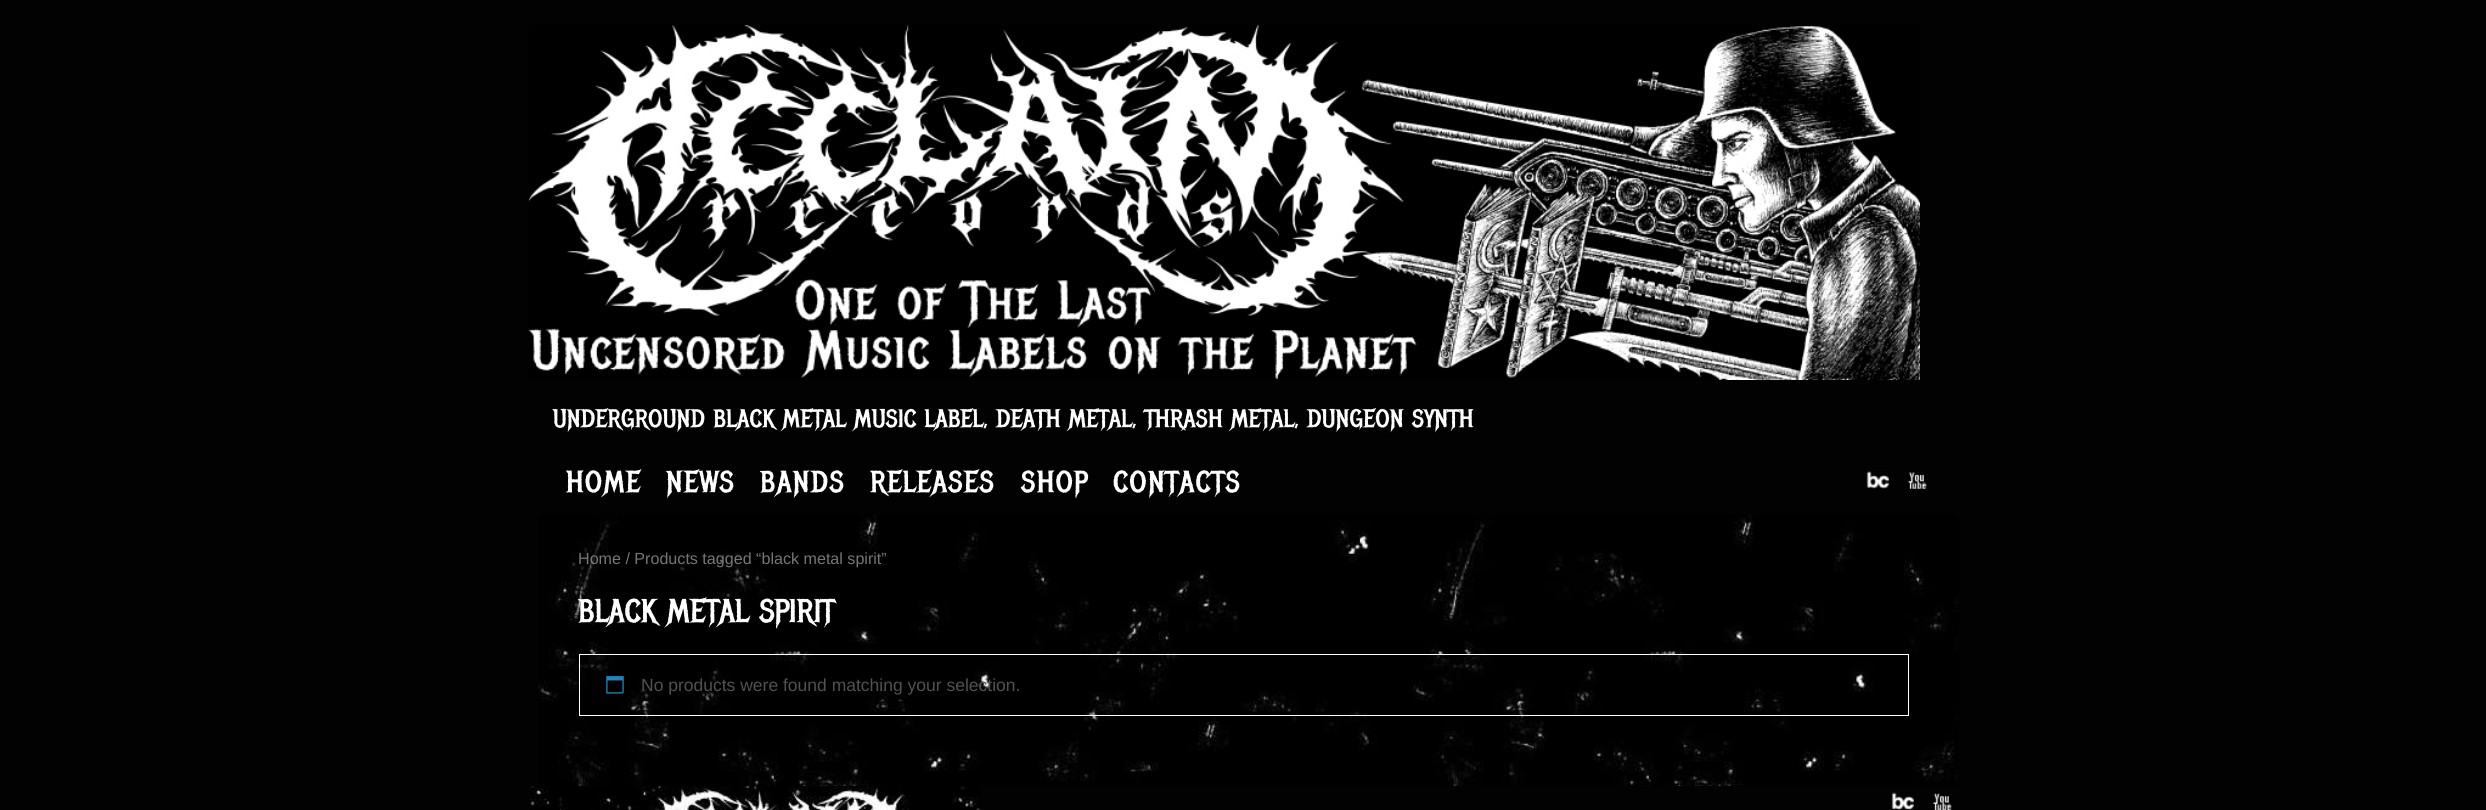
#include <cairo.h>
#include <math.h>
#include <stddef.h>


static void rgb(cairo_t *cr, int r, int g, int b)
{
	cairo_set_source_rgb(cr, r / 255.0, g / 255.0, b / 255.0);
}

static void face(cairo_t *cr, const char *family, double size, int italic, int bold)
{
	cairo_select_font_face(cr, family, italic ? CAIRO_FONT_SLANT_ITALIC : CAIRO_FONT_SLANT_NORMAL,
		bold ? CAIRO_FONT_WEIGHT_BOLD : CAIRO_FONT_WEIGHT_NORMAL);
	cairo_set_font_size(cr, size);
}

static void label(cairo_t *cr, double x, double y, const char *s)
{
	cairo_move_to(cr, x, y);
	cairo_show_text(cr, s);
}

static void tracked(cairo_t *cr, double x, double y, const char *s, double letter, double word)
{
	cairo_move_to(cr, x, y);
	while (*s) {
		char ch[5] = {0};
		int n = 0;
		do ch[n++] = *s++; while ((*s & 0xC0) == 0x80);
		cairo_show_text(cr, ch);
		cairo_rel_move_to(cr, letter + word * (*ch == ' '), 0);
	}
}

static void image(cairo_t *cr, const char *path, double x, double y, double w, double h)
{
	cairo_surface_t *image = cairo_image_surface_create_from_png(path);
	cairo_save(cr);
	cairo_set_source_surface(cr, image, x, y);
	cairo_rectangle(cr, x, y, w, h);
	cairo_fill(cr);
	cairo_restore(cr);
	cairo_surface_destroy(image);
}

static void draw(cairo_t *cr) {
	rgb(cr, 2, 2, 2);
	cairo_paint(cr);
	image(cr, "image0.png", 528, 25, 1392, 355);
	face(cr, "Metal Mania", 25, 0, 0);
	rgb(cr, 255, 255, 255);
	tracked(cr, 553, 427, "UNDERGROUND BLACK METAL MUSIC LABEL, DEATH METAL, THRASH METAL, DUNGEON SYNTH", 0.12, 0);
	face(cr, "Metal Mania", 30, 0, 0);
	tracked(cr, 566, 492, "HOME", 1.25, 0);
	tracked(cr, 666, 492, "NEWS", 1.25, 0);
	tracked(cr, 760, 492, "BANDS", 1.25, 0);
	tracked(cr, 870, 492, "RELEASES", 1.25, 0);
	tracked(cr, 1021, 492, "SHOP", 1.25, 0);
	tracked(cr, 1113, 492, "CONTACTS", 1.25, 0);
	image(cr, "image1.png", 1866, 471, 23, 18);
	image(cr, "image2.png", 1907, 472, 20, 18);
	image(cr, "image3.png", 538, 514, 1421, 272);
	face(cr, "Liberation Sans", 16.1, 0, 0);
	rgb(cr, 118, 118, 118);
	label(cr, 578, 564, "Home / Products tagged “black metal spirit”");
	face(cr, "Metal Mania", 32.5, 0, 0);
	rgb(cr, 255, 255, 255);
	label(cr, 578, 622, "BLACK METAL SPIRIT");
	cairo_rectangle(cr, 579.5, 654.5, 1329, 61);
	cairo_set_line_width(cr, 1);
	cairo_stroke(cr);
	image(cr, "image4.png", 606, 676, 18, 18);
	face(cr, "Liberation Sans", 17.5, 0, 0);
	rgb(cr, 81, 81, 81);
	label(cr, 641, 691, "No products were found matching your selection.");
	image(cr, "image5.png", 529, 786, 452, 24);
	image(cr, "image6.png", 1891, 792, 23, 18);
	image(cr, "image7.png", 1932, 793, 20, 17);
}

int main(void) {
	cairo_surface_t *surface = cairo_image_surface_create(CAIRO_FORMAT_RGB24, 2486, 810);
	cairo_t *cr = cairo_create(surface);
	cairo_font_options_t *options = cairo_font_options_create();
	cairo_font_options_set_hint_metrics(options, CAIRO_HINT_METRICS_OFF);
	cairo_font_options_set_hint_style(options, CAIRO_HINT_STYLE_NONE);
	cairo_set_font_options(cr, options);
	cairo_set_miter_limit(cr, 4);
	draw(cr);
	cairo_surface_write_to_png(surface, "render.png");
	cairo_font_options_destroy(options);
	cairo_destroy(cr);
	cairo_surface_destroy(surface);
	return 0;
}
